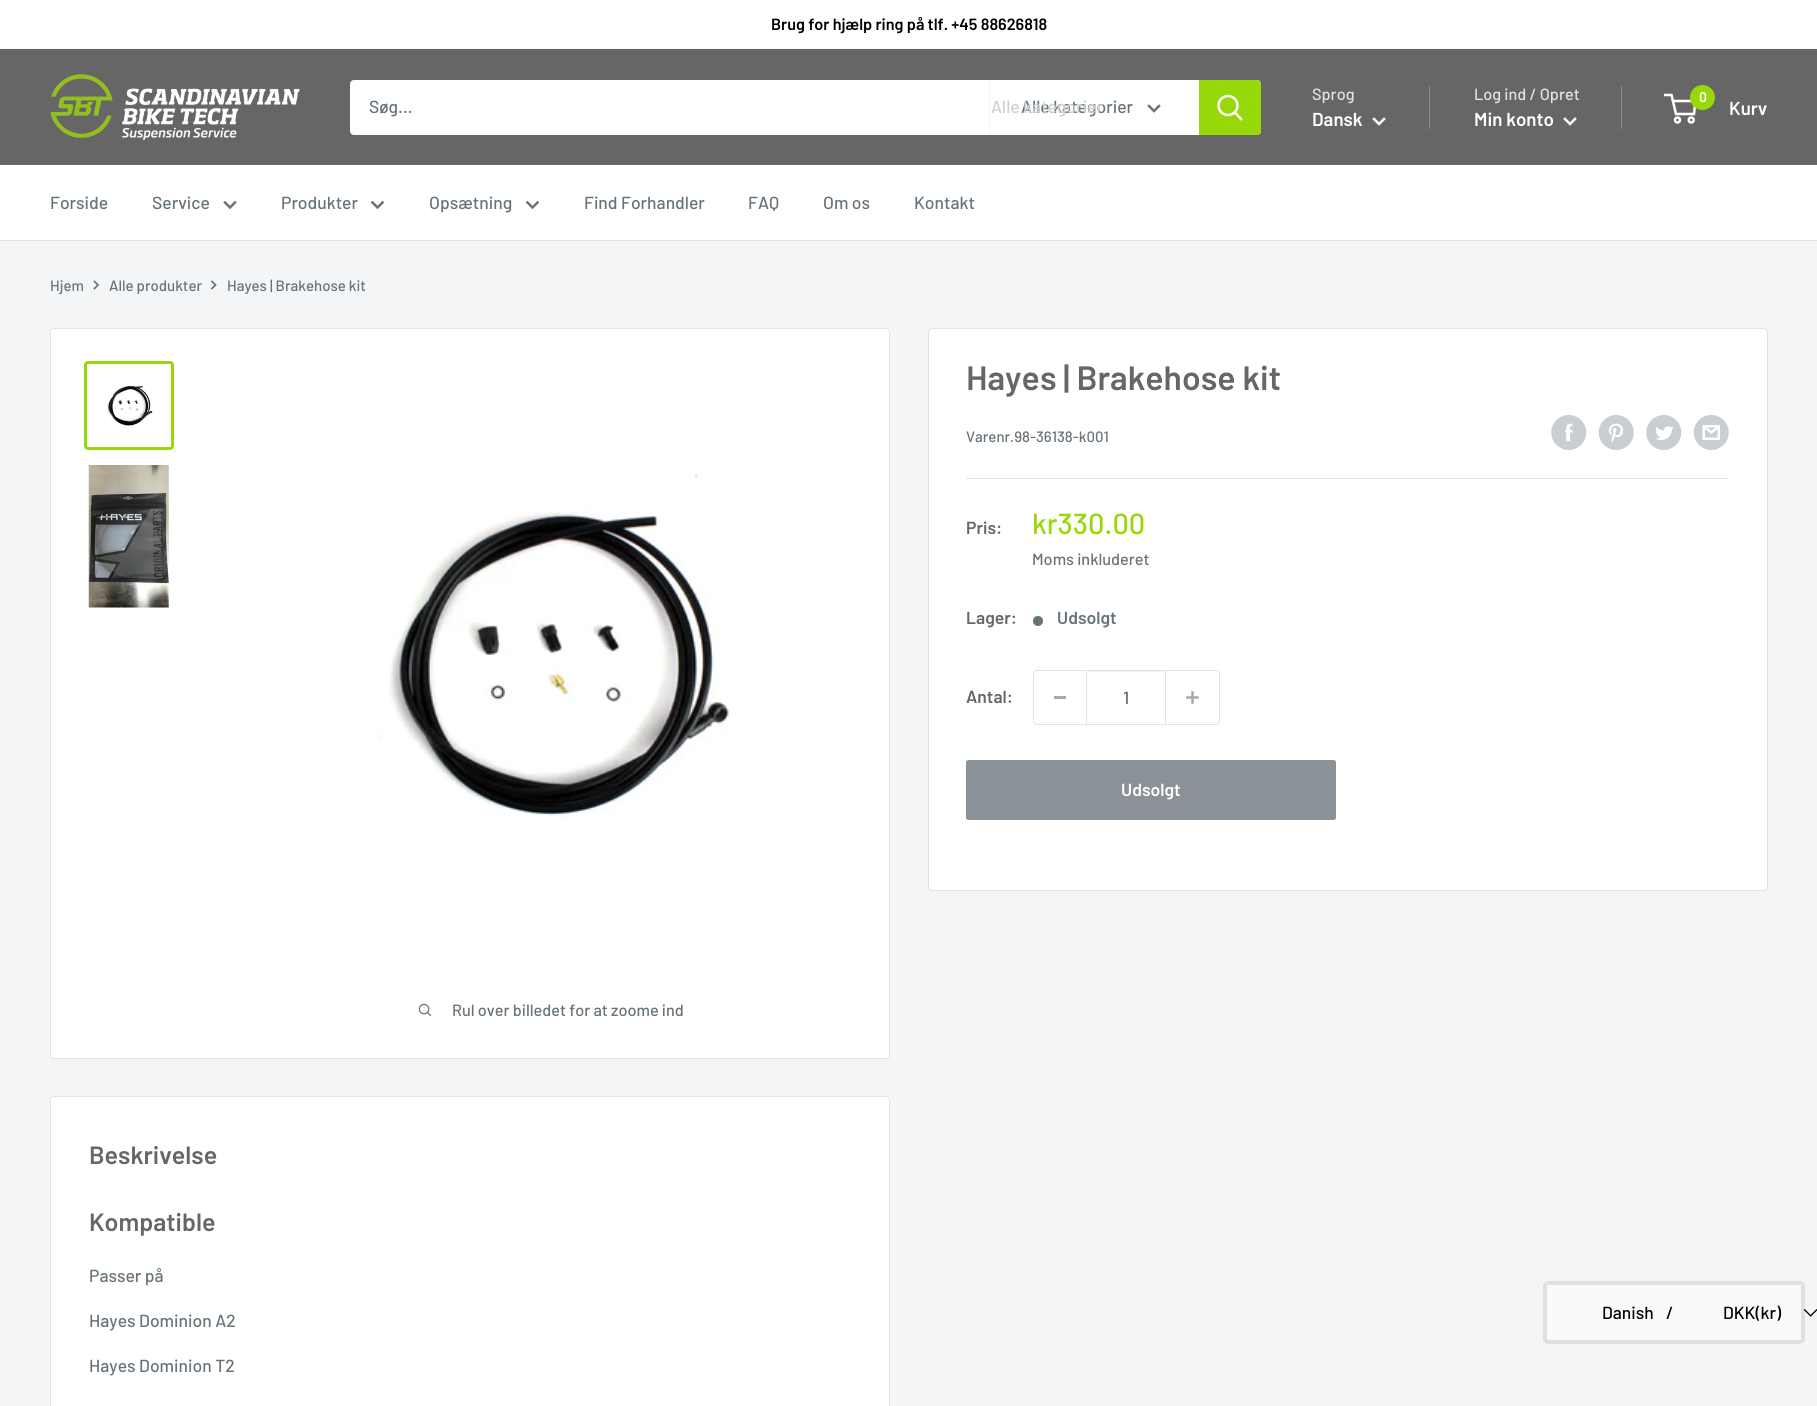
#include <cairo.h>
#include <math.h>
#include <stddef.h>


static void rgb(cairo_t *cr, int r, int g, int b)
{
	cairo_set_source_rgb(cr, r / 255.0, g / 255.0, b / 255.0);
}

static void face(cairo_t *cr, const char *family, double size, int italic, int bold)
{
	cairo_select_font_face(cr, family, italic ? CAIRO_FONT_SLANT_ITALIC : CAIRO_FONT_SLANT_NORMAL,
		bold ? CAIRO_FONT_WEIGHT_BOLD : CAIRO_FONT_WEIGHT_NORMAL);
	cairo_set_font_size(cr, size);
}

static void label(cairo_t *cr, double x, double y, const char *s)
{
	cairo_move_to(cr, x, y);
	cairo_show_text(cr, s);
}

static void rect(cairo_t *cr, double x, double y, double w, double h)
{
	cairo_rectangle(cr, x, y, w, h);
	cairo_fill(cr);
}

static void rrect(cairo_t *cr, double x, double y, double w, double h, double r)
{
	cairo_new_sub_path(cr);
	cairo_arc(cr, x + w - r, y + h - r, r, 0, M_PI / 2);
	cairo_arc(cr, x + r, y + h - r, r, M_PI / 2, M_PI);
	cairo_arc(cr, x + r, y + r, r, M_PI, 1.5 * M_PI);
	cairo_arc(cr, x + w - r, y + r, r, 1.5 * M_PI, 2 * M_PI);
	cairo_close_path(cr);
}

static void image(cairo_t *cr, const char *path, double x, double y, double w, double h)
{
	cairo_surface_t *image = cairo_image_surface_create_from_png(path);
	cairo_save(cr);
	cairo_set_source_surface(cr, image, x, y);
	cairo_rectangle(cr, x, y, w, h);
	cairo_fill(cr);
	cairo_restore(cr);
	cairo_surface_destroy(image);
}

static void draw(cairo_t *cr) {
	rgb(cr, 243, 245, 246);
	cairo_paint(cr);
	rgb(cr, 255, 255, 255);
	rect(cr, 0, 0, 1817, 48);
	rgb(cr, 246, 247, 247);
	rect(cr, 0, 48, 1817, 1);
	face(cr, "Barlow SemiBold", 16.25, 0, 0);
	rgb(cr, 0, 0, 0);
	label(cr, 771, 30, "Brug for hjælp ring på tlf. +45 88626818");
	rgb(cr, 102, 102, 102);
	rect(cr, 0, 49, 1817, 116);
	image(cr, "image0.png", 50, 74, 250, 66);
	rgb(cr, 255, 255, 255);
	rrect(cr, 350, 80, 911, 55, 4);
	cairo_fill(cr);
	face(cr, "Barlow Medium", 17.5, 0, 0);
	rgb(cr, 103, 114, 121);
	label(cr, 369, 113, "Søg...");
	rgb(cr, 246, 247, 247);
	rect(cr, 989, 80, 1, 55);
	rgb(cr, 103, 114, 121);
	label(cr, 1021, 113, "Alle kategorier");
	rgb(cr, 204, 208, 210);
	label(cr, 991, 113, "Alle kategorier");
	cairo_new_path(cr);
	cairo_move_to(cr, 1159, 106);
	cairo_line_to(cr, 1154, 111);
	cairo_line_to(cr, 1149, 106);
	rgb(cr, 103, 114, 121);
	cairo_set_line_width(cr, 2.5);
	cairo_set_line_cap(cr, CAIRO_LINE_CAP_SQUARE);
	cairo_stroke(cr);
	rgb(cr, 151, 216, 9);
	cairo_new_path(cr);
	cairo_move_to(cr, 1199, 80);
	cairo_line_to(cr, 1257, 80);
	cairo_curve_to(cr, 1259, 80, 1261, 82, 1261, 84);
	cairo_line_to(cr, 1261, 131);
	cairo_curve_to(cr, 1261, 133, 1259, 135, 1257, 135);
	cairo_line_to(cr, 1199, 135);
	cairo_close_path(cr);
	cairo_fill(cr);
	cairo_new_path(cr);
	cairo_move_to(cr, 1241, 119);
	cairo_line_to(cr, 1235, 112.5);
	rgb(cr, 255, 255, 255);
	cairo_stroke(cr);
	cairo_arc(cr, 1228, 105.5, 9.5, 0, 2 * M_PI);
	cairo_set_line_cap(cr, CAIRO_LINE_CAP_BUTT);
	cairo_stroke(cr);
	face(cr, "Barlow Medium", 16.25, 0, 0);
	rgb(cr, 225, 227, 228);
	label(cr, 1312, 100, "Sprog");
	face(cr, "Barlow SemiBold", 18.75, 0, 0);
	rgb(cr, 255, 255, 255);
	label(cr, 1312, 126, "Dansk");
	cairo_new_path(cr);
	cairo_move_to(cr, 1384, 119);
	cairo_line_to(cr, 1379, 124);
	cairo_line_to(cr, 1374, 119);
	cairo_set_line_cap(cr, CAIRO_LINE_CAP_SQUARE);
	cairo_stroke(cr);
	rgb(cr, 139, 140, 140);
	rect(cr, 1429, 86, 1, 43);
	face(cr, "Barlow Medium", 16.25, 0, 0);
	rgb(cr, 225, 227, 228);
	label(cr, 1474, 100, "Log ind / Opret");
	rgb(cr, 139, 140, 140);
	rect(cr, 1621, 86, 1, 43);
	face(cr, "Barlow SemiBold", 18.75, 0, 0);
	rgb(cr, 255, 255, 255);
	label(cr, 1474, 126, "Min konto");
	cairo_new_path(cr);
	cairo_move_to(cr, 1575, 119);
	cairo_line_to(cr, 1570, 124);
	cairo_line_to(cr, 1565, 119);
	cairo_stroke(cr);
	cairo_arc(cr, 1677.5, 120, 2.5, 0, 2 * M_PI);
	cairo_set_line_cap(cr, CAIRO_LINE_CAP_BUTT);
	cairo_stroke(cr);
	cairo_arc(cr, 1691.2, 120, 2.5, 0, 2 * M_PI);
	cairo_stroke(cr);
	cairo_new_path(cr);
	cairo_move_to(cr, 1673, 101);
	cairo_line_to(cr, 1695.5, 101);
	cairo_line_to(cr, 1694, 114);
	cairo_line_to(cr, 1676, 114);
	cairo_line_to(cr, 1671.5, 95);
	cairo_line_to(cr, 1664, 95);
	cairo_stroke(cr);
	rgb(cr, 151, 216, 9);
	cairo_arc(cr, 1702.5, 97.5, 12.5, 0, 2 * M_PI);
	cairo_fill(cr);
	face(cr, "Barlow SemiBold", 14, 0, 0);
	rgb(cr, 255, 255, 255);
	label(cr, 1699, 102, "0");
	face(cr, "Barlow SemiBold", 18.75, 0, 0);
	label(cr, 1729, 115, "Kurv");
	rect(cr, 0, 165, 1817, 75);
	rgb(cr, 225, 227, 228);
	rect(cr, 0, 240, 1817, 1);
	face(cr, "Barlow Medium", 17.5, 0, 0);
	rgb(cr, 103, 114, 121);
	label(cr, 50, 209, "Forside");
	label(cr, 152, 209, "Service");
	cairo_new_path(cr);
	cairo_move_to(cr, 235, 202.5);
	cairo_line_to(cr, 230, 207.5);
	cairo_line_to(cr, 225, 202.5);
	cairo_set_line_cap(cr, CAIRO_LINE_CAP_SQUARE);
	cairo_stroke(cr);
	label(cr, 281, 209, "Produkter");
	cairo_new_path(cr);
	cairo_move_to(cr, 382.5, 202.5);
	cairo_line_to(cr, 377.5, 207.5);
	cairo_line_to(cr, 372.5, 202.5);
	cairo_stroke(cr);
	label(cr, 429, 209, "Opsætning");
	cairo_new_path(cr);
	cairo_move_to(cr, 537.5, 202.5);
	cairo_line_to(cr, 532.5, 207.5);
	cairo_line_to(cr, 527.5, 202.5);
	cairo_stroke(cr);
	label(cr, 584, 209, "Find Forhandler");
	label(cr, 748, 209, "FAQ");
	label(cr, 823, 209, "Om os");
	label(cr, 914, 209, "Kontakt");
	face(cr, "Barlow Medium", 15, 0, 0);
	label(cr, 50, 291, "Hjem");
	cairo_new_path(cr);
	cairo_move_to(cr, 94.5, 281.5);
	cairo_line_to(cr, 98, 285);
	cairo_line_to(cr, 94.5, 288.5);
	cairo_set_line_width(cr, 1.7);
	cairo_stroke(cr);
	label(cr, 109, 291, "Alle produkter");
	cairo_new_path(cr);
	cairo_move_to(cr, 212, 281.5);
	cairo_line_to(cr, 215.5, 285);
	cairo_line_to(cr, 212, 288.5);
	cairo_stroke(cr);
	label(cr, 227, 291, "Hayes | Brakehose kit");
	rgb(cr, 255, 255, 255);
	rrect(cr, 928.5, 328.5, 839, 562, 3.5);
	cairo_fill_preserve(cr);
	rgb(cr, 225, 227, 228);
	cairo_set_line_width(cr, 1);
	cairo_set_line_cap(cr, CAIRO_LINE_CAP_BUTT);
	cairo_stroke(cr);
	face(cr, "Barlow SemiBold", 33.75, 0, 0);
	rgb(cr, 102, 102, 102);
	label(cr, 966, 390, "Hayes | Brakehose kit");
	face(cr, "Barlow Medium", 15, 0, 0);
	rgb(cr, 103, 114, 121);
	label(cr, 966, 442, "Varenr.98-36138-k001");
	image(cr, "image1.png", 1551, 415, 36, 35);
	image(cr, "image2.png", 1598, 415, 36, 35);
	image(cr, "image3.png", 1646, 415, 36, 35);
	image(cr, "image4.png", 1693, 415, 36, 35);
	rgb(cr, 225, 227, 228);
	rect(cr, 966, 478, 763, 1);
	face(cr, "Barlow SemiBold", 17.5, 0, 0);
	rgb(cr, 102, 102, 102);
	label(cr, 966, 534, "Pris:");
	face(cr, "Barlow Medium", 29, 0, 0);
	rgb(cr, 151, 216, 9);
	label(cr, 1032, 534, "kr330.00");
	face(cr, "Barlow Medium", 16.25, 0, 0);
	rgb(cr, 103, 114, 121);
	label(cr, 1032, 565, "Moms inkluderet");
	face(cr, "Barlow SemiBold", 17.5, 0, 0);
	rgb(cr, 102, 102, 102);
	label(cr, 966, 624, "Lager:");
	rgb(cr, 103, 114, 121);
	cairo_new_path(cr);
	cairo_arc(cr, 1038, 621, 5, 0, 2 * M_PI);
	cairo_fill(cr);
	label(cr, 1057, 624, "Udsolgt");
	rgb(cr, 102, 102, 102);
	label(cr, 966, 703, "Antal:");
	rrect(cr, 1033.5, 670.5, 186, 54, 3.5);
	rgb(cr, 225, 227, 228);
	cairo_stroke(cr);
	rgb(cr, 164, 170, 175);
	rect(cr, 1054, 696, 12, 3);
	rgb(cr, 243, 244, 244);
	rect(cr, 1088, 671, 77, 1);
	rgb(cr, 225, 227, 228);
	rect(cr, 1165, 671, 1, 53);
	rect(cr, 1086, 671, 1, 53);
	face(cr, "Barlow Medium", 17.5, 0, 0);
	rgb(cr, 102, 102, 102);
	label(cr, 1123, 704, "1");
	image(cr, "image5.png", 1186, 691, 13, 13);
	rgb(cr, 138, 146, 151);
	rrect(cr, 966.5, 760.5, 369, 59, 2);
	cairo_fill_preserve(cr);
	cairo_stroke(cr);
	face(cr, "Barlow SemiBold", 17.5, 0, 0);
	rgb(cr, 255, 255, 255);
	label(cr, 1121, 796, "Udsolgt");
	rrect(cr, 50.5, 328.5, 839, 730, 3.5);
	cairo_fill_preserve(cr);
	rgb(cr, 225, 227, 228);
	cairo_stroke(cr);
	rrect(cr, 85.5, 362.5, 87, 86, 2.5);
	rgb(cr, 151, 216, 9);
	cairo_set_line_width(cr, 3);
	cairo_stroke(cr);
	image(cr, "image6.png", 107, 386, 46, 41);
	image(cr, "image7.png", 88, 465, 81, 143);
	image(cr, "image8.png", 377, 474, 354, 344);
	image(cr, "image9.png", 418, 1003, 14, 14);
	face(cr, "Barlow Medium", 16.25, 0, 0);
	rgb(cr, 103, 114, 121);
	label(cr, 452, 1016, "Rul over billedet for at zoome ind");
	rgb(cr, 255, 255, 255);
	rrect(cr, 50.5, 1096.5, 839, 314, 3.5);
	cairo_fill_preserve(cr);
	rgb(cr, 225, 227, 228);
	cairo_set_line_width(cr, 1);
	cairo_stroke(cr);
	face(cr, "Barlow SemiBold", 25, 0, 0);
	rgb(cr, 102, 102, 102);
	label(cr, 89, 1164, "Beskrivelse");
	label(cr, 89, 1231, "Kompatible");
	face(cr, "Barlow Medium", 17.5, 0, 0);
	rgb(cr, 103, 114, 121);
	label(cr, 89, 1282, "Passer på");
	label(cr, 89, 1327, "Hayes Dominion A2");
	label(cr, 89, 1372, "Hayes Dominion T2");
	rgb(cr, 249, 250, 250);
	rrect(cr, 1545, 1283, 258, 59, 3);
	cairo_fill_preserve(cr);
	rgb(cr, 224, 224, 224);
	cairo_set_line_width(cr, 4);
	cairo_stroke(cr);
	rgb(cr, 0, 0, 0);
	label(cr, 1602, 1319, "Danish");
	label(cr, 1666, 1319, "/");
	label(cr, 1723, 1319, "DKK(kr)");
	image(cr, "image10.png", 1803, 1309, 14, 8);
}

int main(void) {
	cairo_surface_t *surface = cairo_image_surface_create(CAIRO_FORMAT_RGB24, 1817, 1406);
	cairo_t *cr = cairo_create(surface);
	cairo_font_options_t *options = cairo_font_options_create();
	cairo_font_options_set_hint_metrics(options, CAIRO_HINT_METRICS_OFF);
	cairo_font_options_set_hint_style(options, CAIRO_HINT_STYLE_NONE);
	cairo_set_font_options(cr, options);
	cairo_set_miter_limit(cr, 4);
	draw(cr);
	cairo_surface_write_to_png(surface, "render.png");
	cairo_font_options_destroy(options);
	cairo_destroy(cr);
	cairo_surface_destroy(surface);
	return 0;
}
